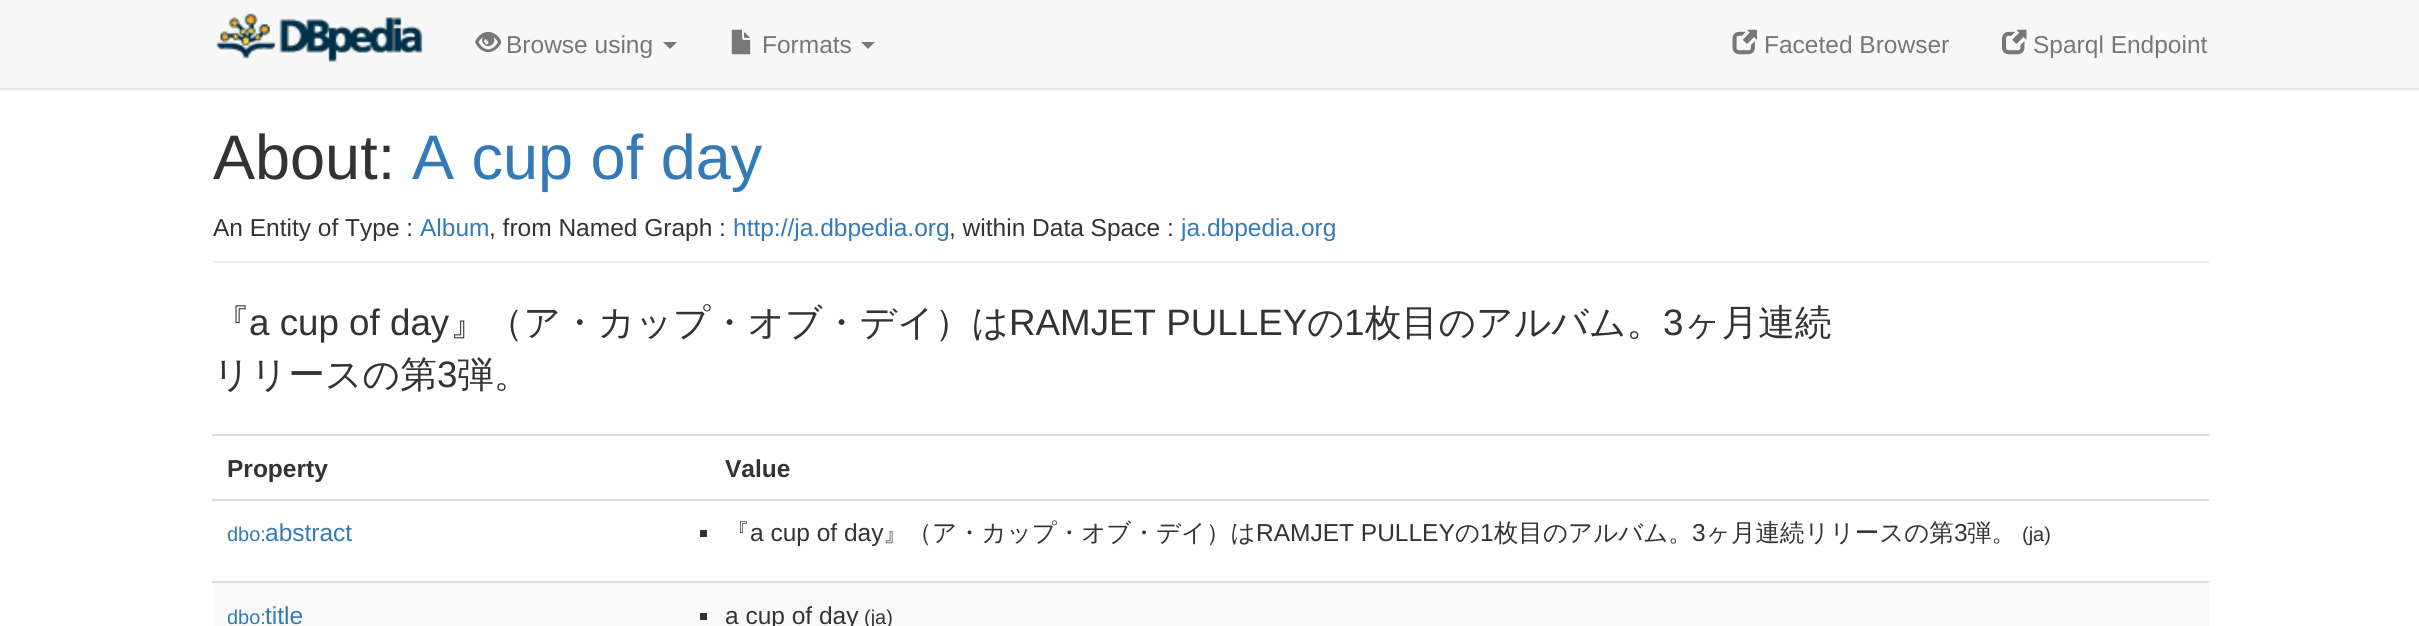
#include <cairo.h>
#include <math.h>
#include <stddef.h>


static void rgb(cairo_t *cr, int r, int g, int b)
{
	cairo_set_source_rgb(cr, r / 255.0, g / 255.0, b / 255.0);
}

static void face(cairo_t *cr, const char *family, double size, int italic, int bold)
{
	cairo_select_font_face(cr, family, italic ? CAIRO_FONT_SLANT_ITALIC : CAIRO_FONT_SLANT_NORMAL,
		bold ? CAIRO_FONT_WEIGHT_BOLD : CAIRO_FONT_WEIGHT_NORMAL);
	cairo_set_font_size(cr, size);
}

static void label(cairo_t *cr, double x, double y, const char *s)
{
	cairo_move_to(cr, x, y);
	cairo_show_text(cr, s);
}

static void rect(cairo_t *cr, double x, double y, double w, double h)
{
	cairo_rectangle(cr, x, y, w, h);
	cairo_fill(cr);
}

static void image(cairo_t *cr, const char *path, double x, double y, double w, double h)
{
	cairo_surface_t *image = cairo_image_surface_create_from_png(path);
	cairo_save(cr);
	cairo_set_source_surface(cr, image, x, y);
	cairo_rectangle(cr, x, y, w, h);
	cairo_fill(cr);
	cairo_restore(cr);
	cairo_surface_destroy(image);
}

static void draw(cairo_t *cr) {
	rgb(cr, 255, 255, 255);
	cairo_paint(cr);
	rgb(cr, 248, 248, 248);
	rect(cr, 0, 0, 2419, 88);
	rgb(cr, 231, 231, 231);
	rect(cr, 0, 88, 2419, 2);
	image(cr, "image0.png", 216, 13, 207, 49);
	image(cr, "image1.png", 475, 31, 27, 22);
	face(cr, "Liberation Sans", 24.5, 0, 0);
	rgb(cr, 119, 119, 119);
	label(cr, 506, 53, "Browse using");
	cairo_new_path(cr);
	cairo_move_to(cr, 663, 42);
	cairo_line_to(cr, 677, 42);
	cairo_line_to(cr, 670, 49);
	cairo_close_path(cr);
	cairo_fill(cr);
	image(cr, "image2.png", 731, 29, 20, 26);
	label(cr, 762, 53, "Formats");
	cairo_new_path(cr);
	cairo_move_to(cr, 861, 42);
	cairo_line_to(cr, 875, 42);
	cairo_line_to(cr, 868, 49);
	cairo_close_path(cr);
	cairo_fill(cr);
	image(cr, "image3.png", 1732, 29, 25, 26);
	label(cr, 1764, 53, "Faceted Browser");
	image(cr, "image4.png", 2002, 29, 25, 26);
	label(cr, 2033, 53, "Sparql Endpoint");
	rgb(cr, 238, 238, 238);
	rect(cr, 214, 261, 1995, 2);
	face(cr, "Liberation Sans", 63, 0, 0);
	rgb(cr, 51, 51, 51);
	label(cr, 213, 179, "About:");
	rgb(cr, 51, 122, 183);
	label(cr, 412, 179, "A cup of day");
	face(cr, "Liberation Sans", 24.5, 0, 0);
	rgb(cr, 51, 51, 51);
	label(cr, 213, 236, "An Entity of Type :");
	rgb(cr, 51, 122, 183);
	label(cr, 420, 236, "Album");
	rgb(cr, 51, 51, 51);
	label(cr, 489, 236, ", from Named Graph :");
	rgb(cr, 51, 122, 183);
	label(cr, 733, 236, "http://ja.dbpedia.org");
	rgb(cr, 51, 51, 51);
	label(cr, 949, 236, ", within Data Space :");
	rgb(cr, 51, 122, 183);
	label(cr, 1181, 236, "ja.dbpedia.org");
	face(cr, "WenQuanYi Zen Hei Medium", 36.75, 0, 0);
	rgb(cr, 51, 51, 51);
	label(cr, 213, 335, "『");
	face(cr, "Liberation Sans", 36.75, 0, 0);
	label(cr, 249, 335, "a cup of day");
	face(cr, "WenQuanYi Zen Hei Medium", 36.75, 0, 0);
	label(cr, 450, 335, "』（ア・カップ・オブ・デイ）は");
	face(cr, "Liberation Sans", 36.75, 0, 0);
	label(cr, 1009, 335, "RAMJET PULLEY");
	face(cr, "WenQuanYi Zen Hei Medium", 36.75, 0, 0);
	label(cr, 1307, 335, "の");
	face(cr, "Liberation Sans", 36.75, 0, 0);
	label(cr, 1344, 335, "1");
	face(cr, "WenQuanYi Zen Hei Medium", 36.75, 0, 0);
	label(cr, 1365, 335, "枚目のアルバム。");
	face(cr, "Liberation Sans", 36.75, 0, 0);
	label(cr, 1663, 335, "3");
	face(cr, "WenQuanYi Zen Hei Medium", 36.75, 0, 0);
	label(cr, 1684, 335, "ヶ月連続");
	label(cr, 213, 387, "リリースの第");
	face(cr, "Liberation Sans", 36.75, 0, 0);
	label(cr, 437, 387, "3");
	face(cr, "WenQuanYi Zen Hei Medium", 36.75, 0, 0);
	label(cr, 457, 387, "弾。");
	face(cr, "Liberation Sans", 24.5, 0, 1);
	label(cr, 227, 477, "Property");
	rgb(cr, 221, 221, 221);
	rect(cr, 212, 434, 1997, 2);
	rgb(cr, 51, 51, 51);
	label(cr, 725, 477, "Value");
	face(cr, "Liberation Sans", 20, 0, 0);
	rgb(cr, 51, 122, 183);
	label(cr, 227, 541, "dbo:");
	face(cr, "Liberation Sans", 24.5, 0, 0);
	label(cr, 265, 541, "abstract");
	rgb(cr, 221, 221, 221);
	rect(cr, 212, 499, 1997, 2);
	rgb(cr, 51, 51, 51);
	rect(cr, 700, 530, 7, 7);
	face(cr, "WenQuanYi Zen Hei Medium", 24.5, 0, 0);
	label(cr, 725, 541, "『");
	face(cr, "Liberation Sans", 24.5, 0, 0);
	label(cr, 750, 541, "a cup of day");
	face(cr, "WenQuanYi Zen Hei Medium", 24.5, 0, 0);
	label(cr, 883, 541, "』（ア・カップ・オブ・デイ）は");
	face(cr, "Liberation Sans", 24.5, 0, 0);
	label(cr, 1256, 541, "RAMJET PULLEY");
	face(cr, "WenQuanYi Zen Hei Medium", 24.5, 0, 0);
	label(cr, 1455, 541, "の");
	face(cr, "Liberation Sans", 24.5, 0, 0);
	label(cr, 1480, 541, "1");
	face(cr, "WenQuanYi Zen Hei Medium", 24.5, 0, 0);
	label(cr, 1494, 541, "枚目のアルバム。");
	face(cr, "Liberation Sans", 24.5, 0, 0);
	label(cr, 1692, 541, "3");
	face(cr, "WenQuanYi Zen Hei Medium", 24.5, 0, 0);
	label(cr, 1706, 541, "ヶ月連続リリースの第");
	face(cr, "Liberation Sans", 24.5, 0, 0);
	label(cr, 1954, 541, "3");
	face(cr, "WenQuanYi Zen Hei Medium", 24.5, 0, 0);
	label(cr, 1967, 541, "弾。");
	face(cr, "Liberation Sans", 20, 0, 0);
	label(cr, 2022, 541, "(ja)");
	rgb(cr, 249, 249, 249);
	rect(cr, 214, 583, 1995, 43);
	rgb(cr, 51, 122, 183);
	label(cr, 227, 624, "dbo:");
	face(cr, "Liberation Sans", 24.5, 0, 0);
	label(cr, 265, 624, "title");
	rgb(cr, 221, 221, 221);
	rect(cr, 212, 581, 1997, 2);
	rgb(cr, 51, 51, 51);
	rect(cr, 700, 613, 7, 7);
	label(cr, 725, 624, "a cup of day");
	face(cr, "Liberation Sans", 20, 0, 0);
	label(cr, 864, 624, "(ja)");
}

int main(void) {
	cairo_surface_t *surface = cairo_image_surface_create(CAIRO_FORMAT_RGB24, 2419, 626);
	cairo_t *cr = cairo_create(surface);
	cairo_font_options_t *options = cairo_font_options_create();
	cairo_font_options_set_hint_metrics(options, CAIRO_HINT_METRICS_OFF);
	cairo_font_options_set_hint_style(options, CAIRO_HINT_STYLE_NONE);
	cairo_set_font_options(cr, options);
	cairo_set_miter_limit(cr, 4);
	draw(cr);
	cairo_surface_write_to_png(surface, "render.png");
	cairo_font_options_destroy(options);
	cairo_destroy(cr);
	cairo_surface_destroy(surface);
	return 0;
}
